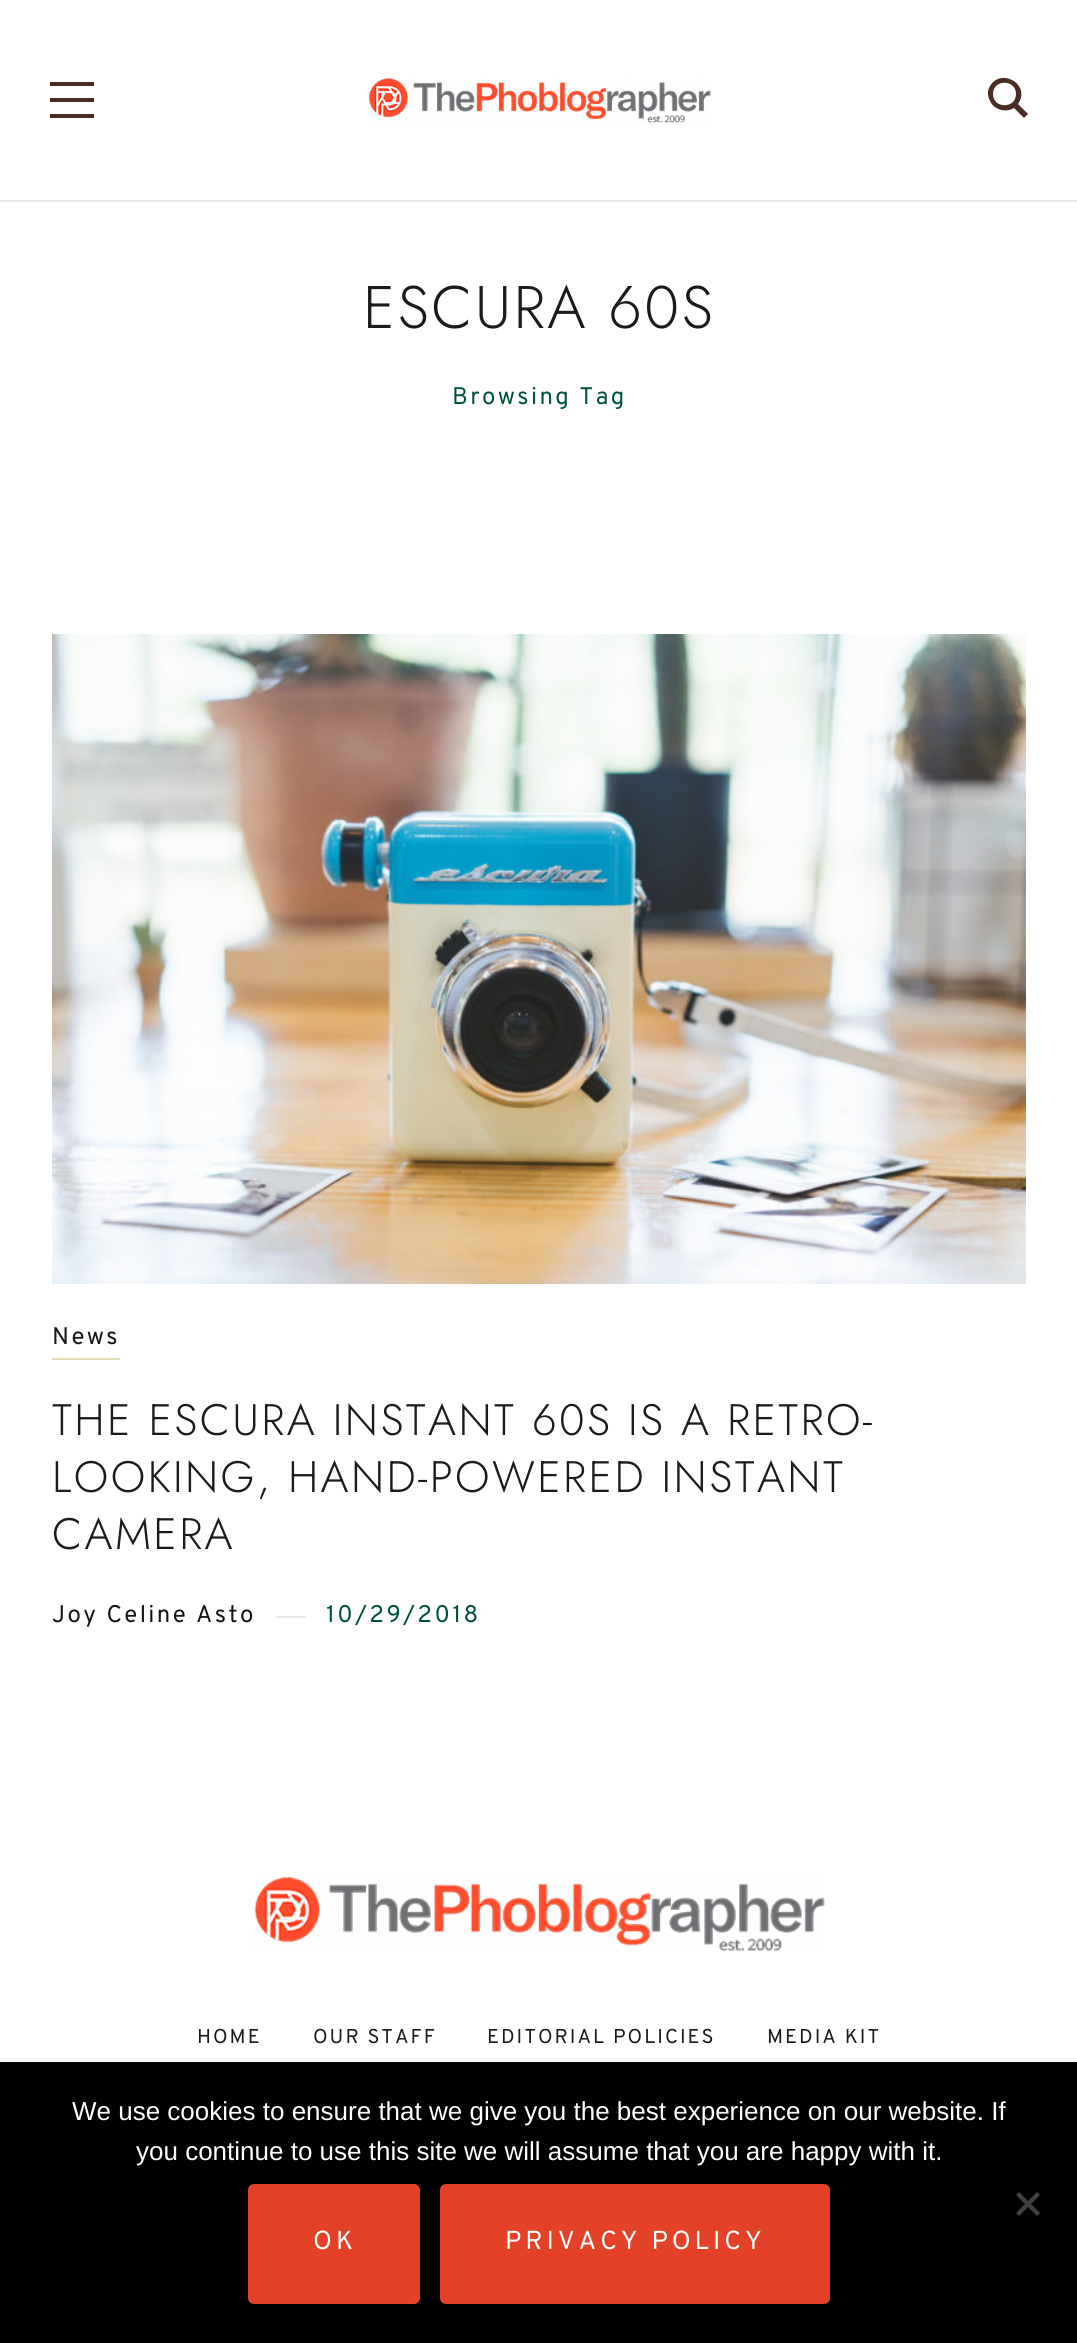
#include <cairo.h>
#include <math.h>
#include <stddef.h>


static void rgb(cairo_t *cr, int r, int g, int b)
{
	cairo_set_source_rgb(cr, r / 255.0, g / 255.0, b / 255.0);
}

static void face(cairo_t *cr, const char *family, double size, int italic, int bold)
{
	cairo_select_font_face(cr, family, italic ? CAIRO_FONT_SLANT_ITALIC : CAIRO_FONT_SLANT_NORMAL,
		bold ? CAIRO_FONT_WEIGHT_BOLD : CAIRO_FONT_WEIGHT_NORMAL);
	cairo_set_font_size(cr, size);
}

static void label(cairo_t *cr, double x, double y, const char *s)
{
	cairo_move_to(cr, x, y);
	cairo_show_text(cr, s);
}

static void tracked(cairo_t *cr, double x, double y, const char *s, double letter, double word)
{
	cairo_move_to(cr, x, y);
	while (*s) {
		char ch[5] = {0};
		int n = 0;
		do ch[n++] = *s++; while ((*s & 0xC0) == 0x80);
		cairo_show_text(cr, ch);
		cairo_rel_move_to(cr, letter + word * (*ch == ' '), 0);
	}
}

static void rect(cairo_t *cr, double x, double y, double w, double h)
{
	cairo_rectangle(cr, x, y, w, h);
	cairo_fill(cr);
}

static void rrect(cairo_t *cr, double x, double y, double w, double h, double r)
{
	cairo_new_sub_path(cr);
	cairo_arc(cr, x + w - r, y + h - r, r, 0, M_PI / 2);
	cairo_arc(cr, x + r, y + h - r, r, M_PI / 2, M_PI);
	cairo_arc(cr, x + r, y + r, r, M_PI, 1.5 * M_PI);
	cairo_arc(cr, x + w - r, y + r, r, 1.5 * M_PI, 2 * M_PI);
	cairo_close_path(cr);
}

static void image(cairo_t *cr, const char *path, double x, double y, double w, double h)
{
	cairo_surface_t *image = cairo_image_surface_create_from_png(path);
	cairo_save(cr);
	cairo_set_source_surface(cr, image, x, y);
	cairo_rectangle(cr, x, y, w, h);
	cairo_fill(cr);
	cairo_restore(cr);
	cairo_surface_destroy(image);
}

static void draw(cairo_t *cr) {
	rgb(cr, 255, 255, 255);
	cairo_paint(cr);
	rgb(cr, 238, 230, 226);
	rect(cr, 0, 200, 1077, 2);
	rgb(cr, 73, 44, 35);
	rect(cr, 50, 82, 44, 4);
	rect(cr, 50, 114, 44, 4);
	rect(cr, 50, 98, 44, 4);
	image(cr, "image0.png", 368, 78, 343, 45);
	cairo_new_path(cr);
	cairo_move_to(cr, 1028, 114);
	cairo_line_to(cr, 1018, 104);
	cairo_curve_to(cr, 1032, 84, 999, 66, 989, 88);
	cairo_curve_to(cr, 987, 92, 988, 97, 990, 101);
	cairo_curve_to(cr, 994, 110, 1006, 113, 1014, 108);
	cairo_line_to(cr, 1024, 118);
	cairo_close_path(cr);
	cairo_move_to(cr, 993, 94);
	cairo_curve_to(cr, 993, 79, 1016, 79, 1016, 94);
	cairo_curve_to(cr, 1016, 109, 993, 109, 993, 94);
	cairo_close_path(cr);
	cairo_fill(cr);
	face(cr, "Jost Light", 60, 0, 0);
	rgb(cr, 27, 27, 27);
	tracked(cr, 363, 328, "ESCURA 60S", 2.4, 0);
	face(cr, "Overpass", 24, 0, 0);
	rgb(cr, 0, 82, 64);
	tracked(cr, 452, 404, "Browsing Tag", 2.4, 0);
	image(cr, "image1.png", 52, 634, 974, 650);
	rgb(cr, 229, 221, 179);
	rect(cr, 52, 1358, 68, 2);
	rgb(cr, 18, 20, 22);
	tracked(cr, 52, 1344, "News", 2.4, 0);
	face(cr, "Jost Light", 44, 0, 0);
	rgb(cr, 27, 27, 27);
	tracked(cr, 52, 1435, "THE ESCURA INSTANT 60S IS A RETRO-", 2.4, 0);
	tracked(cr, 52, 1492, "LOOKING, HAND-POWERED INSTANT", 2.4, 0);
	tracked(cr, 52, 1549, "CAMERA", 2.4, 0);
	face(cr, "Overpass", 24, 0, 0);
	rgb(cr, 18, 20, 22);
	tracked(cr, 52, 1622, "Joy Celine Asto", 2.4, 0);
	rgb(cr, 238, 230, 226);
	rect(cr, 276, 1616, 30, 2);
	rgb(cr, 0, 82, 64);
	tracked(cr, 326, 1622, "10/29/2018", 2.4, 0);
	image(cr, "image2.png", 254, 1877, 571, 75);
	face(cr, "Overpass", 20, 0, 0);
	rgb(cr, 27, 27, 27);
	tracked(cr, 197, 2043, "HOME", 2, 0);
	tracked(cr, 313, 2043, "OUR STAFF", 2, 0);
	tracked(cr, 487, 2043, "EDITORIAL POLICIES", 2, 0);
	tracked(cr, 767, 2043, "MEDIA KIT", 2, 0);
	rgb(cr, 0, 0, 0);
	rect(cr, 0, 2062, 1077, 281);
	face(cr, "Liberation Sans", 26, 0, 0);
	rgb(cr, 255, 255, 255);
	label(cr, 72, 2120, "We use cookies to ensure that we give you the best experience on our website. If");
	label(cr, 136, 2160, "you continue to use this site we will assume that you are happy with it.");
	rgb(cr, 64, 64, 64);
	cairo_new_path(cr);
	cairo_move_to(cr, 1037, 2192);
	cairo_line_to(cr, 1040, 2195);
	cairo_line_to(cr, 1019, 2216);
	cairo_line_to(cr, 1016, 2213);
	cairo_close_path(cr);
	cairo_fill(cr);
	cairo_new_path(cr);
	cairo_move_to(cr, 1016, 2195);
	cairo_line_to(cr, 1019, 2192);
	cairo_line_to(cr, 1040, 2213);
	cairo_line_to(cr, 1037, 2216);
	cairo_close_path(cr);
	cairo_fill(cr);
	rgb(cr, 227, 66, 40);
	rrect(cr, 248, 2184, 172, 120, 6);
	cairo_fill(cr);
	face(cr, "Overpass", 26, 0, 0);
	rgb(cr, 255, 255, 255);
	tracked(cr, 313, 2249, "OK", 3.9, 0);
	rgb(cr, 227, 66, 40);
	rrect(cr, 440, 2184, 390, 120, 6);
	cairo_fill(cr);
	rgb(cr, 255, 255, 255);
	tracked(cr, 505, 2249, "PRIVACY POLICY", 3.9, 0);
}

int main(void) {
	cairo_surface_t *surface = cairo_image_surface_create(CAIRO_FORMAT_RGB24, 1077, 2343);
	cairo_t *cr = cairo_create(surface);
	cairo_font_options_t *options = cairo_font_options_create();
	cairo_font_options_set_hint_metrics(options, CAIRO_HINT_METRICS_OFF);
	cairo_font_options_set_hint_style(options, CAIRO_HINT_STYLE_NONE);
	cairo_set_font_options(cr, options);
	cairo_set_miter_limit(cr, 4);
	draw(cr);
	cairo_surface_write_to_png(surface, "render.png");
	cairo_font_options_destroy(options);
	cairo_destroy(cr);
	cairo_surface_destroy(surface);
	return 0;
}
